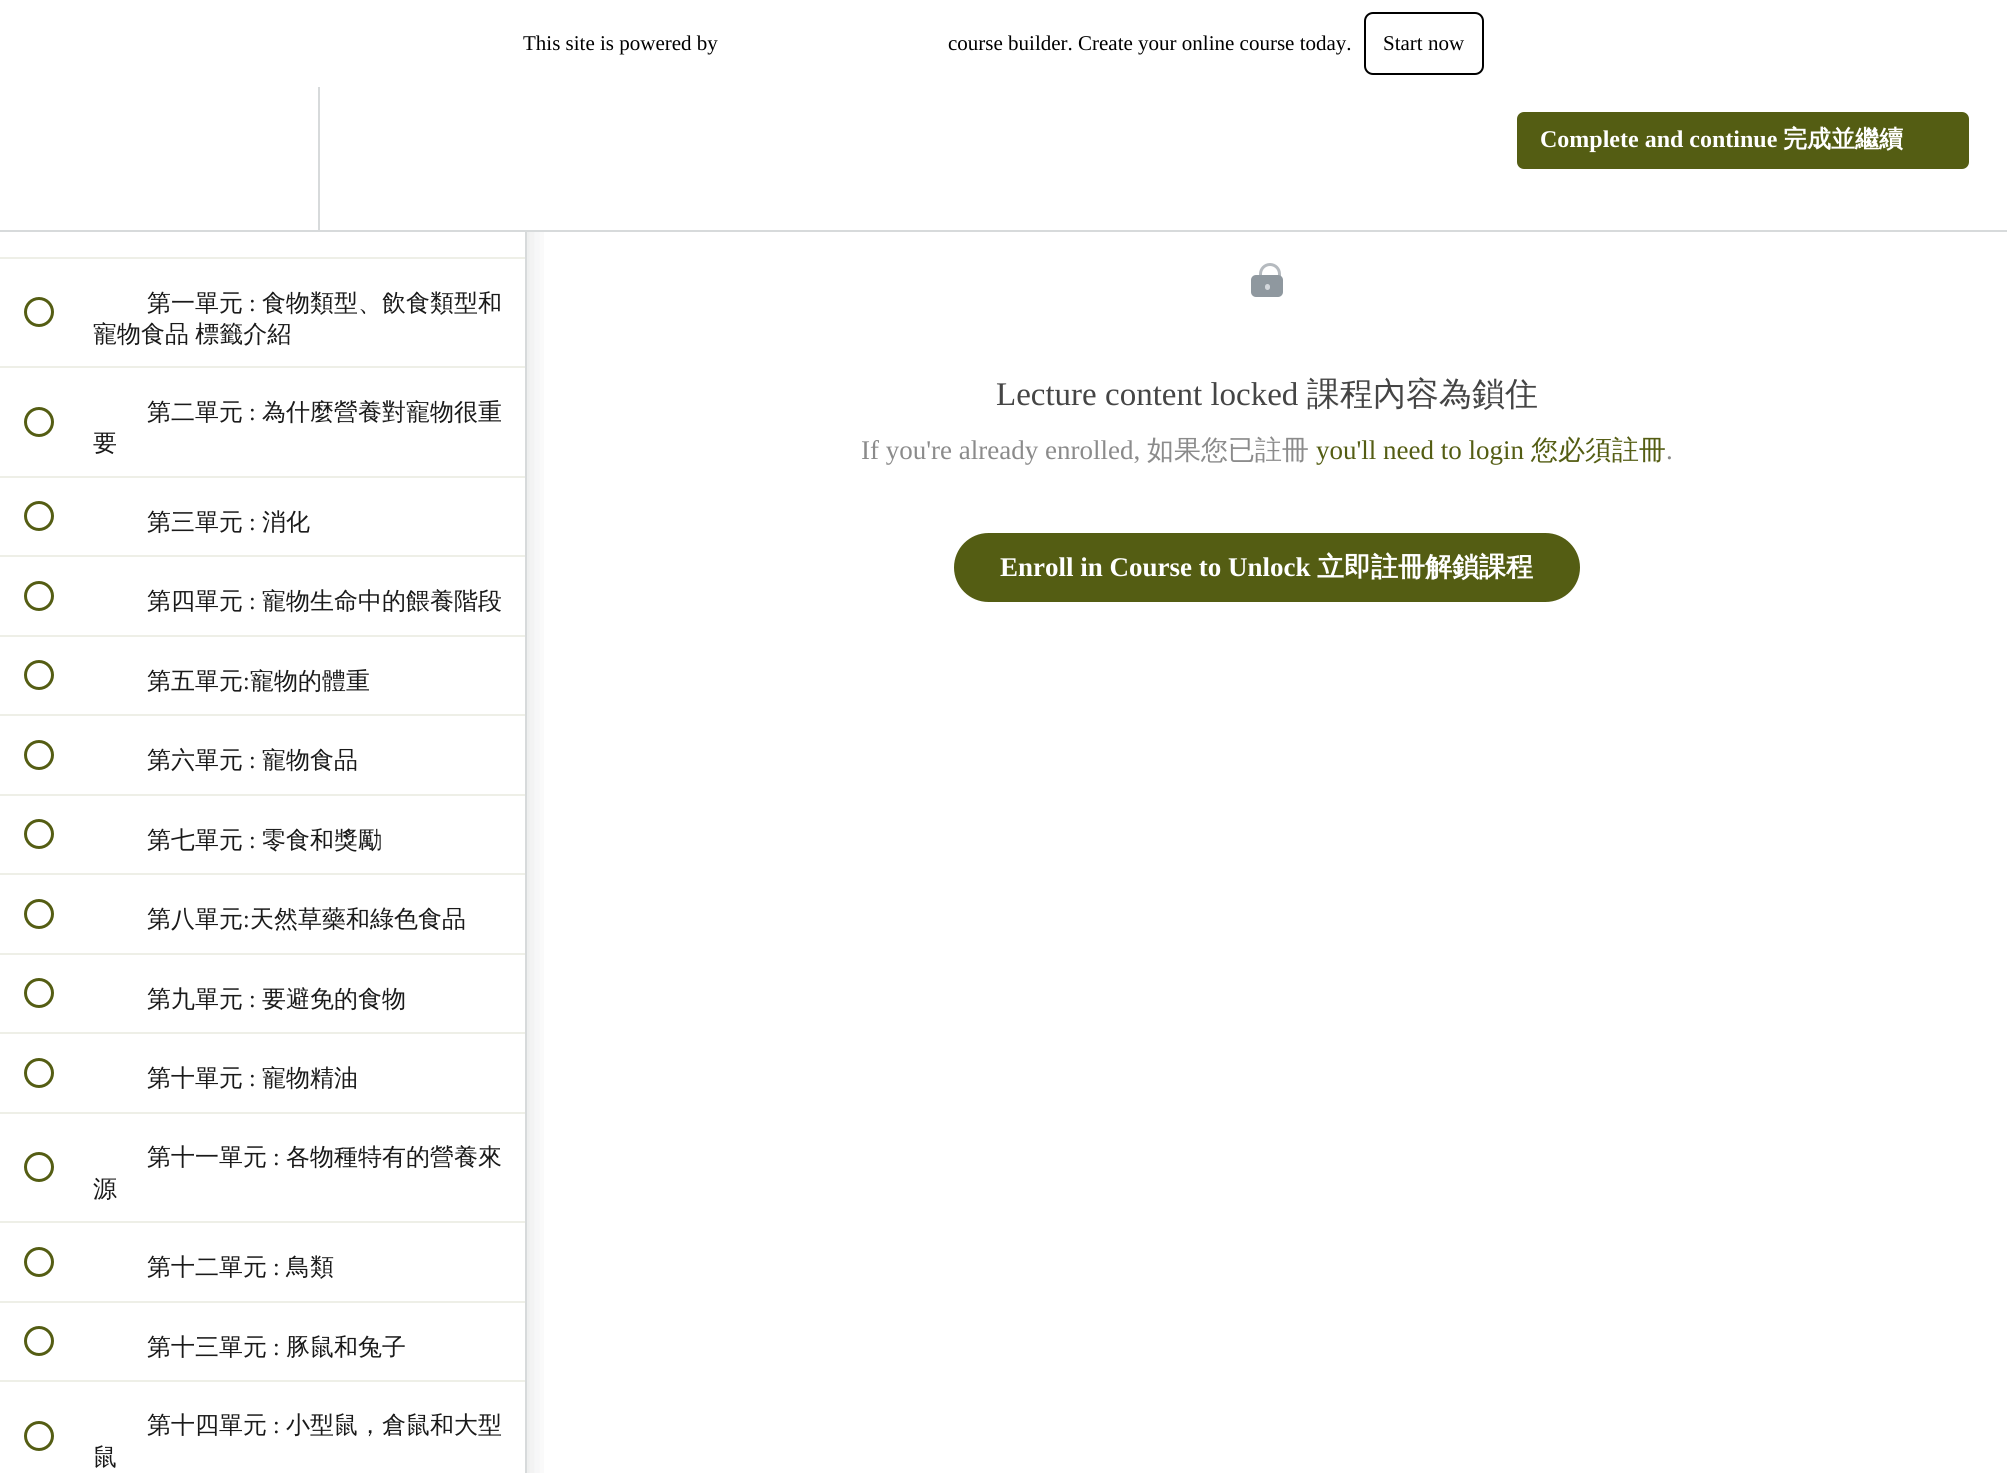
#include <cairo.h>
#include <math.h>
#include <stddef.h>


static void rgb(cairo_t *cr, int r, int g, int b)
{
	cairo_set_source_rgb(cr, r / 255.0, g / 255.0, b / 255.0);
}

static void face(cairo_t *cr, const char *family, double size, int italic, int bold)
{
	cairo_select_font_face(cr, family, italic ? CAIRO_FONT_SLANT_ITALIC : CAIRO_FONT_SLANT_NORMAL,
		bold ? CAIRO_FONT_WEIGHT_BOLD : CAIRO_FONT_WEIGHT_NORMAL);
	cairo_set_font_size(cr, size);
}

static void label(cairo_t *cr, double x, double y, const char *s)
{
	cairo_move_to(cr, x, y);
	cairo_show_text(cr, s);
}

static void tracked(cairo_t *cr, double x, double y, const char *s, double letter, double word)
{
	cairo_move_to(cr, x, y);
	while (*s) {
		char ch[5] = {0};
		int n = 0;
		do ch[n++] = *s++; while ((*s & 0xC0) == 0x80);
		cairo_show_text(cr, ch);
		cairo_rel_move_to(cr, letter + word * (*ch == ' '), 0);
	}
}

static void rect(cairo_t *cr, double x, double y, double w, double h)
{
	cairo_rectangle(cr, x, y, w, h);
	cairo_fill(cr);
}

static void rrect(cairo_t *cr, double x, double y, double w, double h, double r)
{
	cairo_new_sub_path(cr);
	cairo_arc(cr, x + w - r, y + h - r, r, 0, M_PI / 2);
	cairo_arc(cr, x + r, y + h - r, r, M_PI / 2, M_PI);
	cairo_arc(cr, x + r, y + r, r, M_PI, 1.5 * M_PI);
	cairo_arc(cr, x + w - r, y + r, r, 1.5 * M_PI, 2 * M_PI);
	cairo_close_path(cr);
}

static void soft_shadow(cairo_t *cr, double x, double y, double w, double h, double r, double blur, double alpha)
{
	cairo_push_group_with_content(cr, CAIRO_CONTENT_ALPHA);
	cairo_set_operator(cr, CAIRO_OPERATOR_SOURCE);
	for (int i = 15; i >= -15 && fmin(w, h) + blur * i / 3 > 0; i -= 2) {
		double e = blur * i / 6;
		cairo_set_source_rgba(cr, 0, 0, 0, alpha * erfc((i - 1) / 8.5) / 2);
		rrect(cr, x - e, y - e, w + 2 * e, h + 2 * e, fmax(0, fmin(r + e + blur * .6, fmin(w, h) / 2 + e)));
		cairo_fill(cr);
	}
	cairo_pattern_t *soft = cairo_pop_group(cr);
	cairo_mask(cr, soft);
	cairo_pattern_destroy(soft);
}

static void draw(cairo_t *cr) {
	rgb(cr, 255, 255, 255);
	cairo_paint(cr);
	cairo_save(cr);
	cairo_rectangle(cr, 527, 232, 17, 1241);
	cairo_clip(cr);
	rgb(cr, 32, 39, 45);
	soft_shadow(cr, 0, 116, 527, 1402, 0, 15, 0.15);
	cairo_restore(cr);
	rgb(cr, 255, 255, 255);
	rect(cr, 0, 95, 548, 135);
	rgb(cr, 215, 218, 219);
	rect(cr, 0, 230, 2007, 2);
	face(cr, "Liberation Serif", 21, 0, 0);
	rgb(cr, 0, 0, 0);
	label(cr, 523, 50, "This site is powered by");
	label(cr, 948, 50, "course builder. Create your online course today.");
	rrect(cr, 1365, 13, 118, 61, 8);
	cairo_stroke(cr);
	label(cr, 1383, 50, "Start now");
	rgb(cr, 215, 218, 219);
	rect(cr, 318, 87, 2, 143);
	rgb(cr, 84, 93, 19);
	rrect(cr, 1516, 111, 454, 59, 8);
	cairo_fill_preserve(cr);
	rgb(cr, 255, 255, 255);
	cairo_stroke(cr);
	face(cr, "Liberation Serif", 24, 0, 1);
	label(cr, 1540, 147, "Complete and continue");
	face(cr, "WenQuanYi Zen Hei", 24, 0, 1);
	label(cr, 1783, 147, "完成並繼續");
	rgb(cr, 215, 218, 219);
	rect(cr, 525, 232, 2, 1241);
	rgb(cr, 238, 239, 231);
	rect(cr, 0, 257, 525, 2);
	rect(cr, 0, 366, 525, 2);
	cairo_new_path(cr);
	cairo_arc(cr, 39, 312, 13.5, 0, 2 * M_PI);
	rgb(cr, 84, 93, 19);
	cairo_set_line_width(cr, 3);
	cairo_stroke(cr);
	face(cr, "WenQuanYi Zen Hei Medium", 24, 0, 0);
	rgb(cr, 26, 26, 26);
	label(cr, 147, 311, "第一單元");
	face(cr, "Liberation Serif", 24, 0, 0);
	label(cr, 249, 311, ":");
	face(cr, "WenQuanYi Zen Hei Medium", 24, 0, 0);
	label(cr, 262, 311, "食物類型、飲食類型和");
	tracked(cr, 93, 342, "寵物食品 標籤介紹", 0, -1);
	rgb(cr, 238, 239, 231);
	rect(cr, 0, 476, 525, 2);
	cairo_new_path(cr);
	cairo_arc(cr, 39, 422, 13.5, 0, 2 * M_PI);
	rgb(cr, 84, 93, 19);
	cairo_stroke(cr);
	rgb(cr, 26, 26, 26);
	label(cr, 147, 420, "第二單元");
	face(cr, "Liberation Serif", 24, 0, 0);
	label(cr, 249, 420, ":");
	face(cr, "WenQuanYi Zen Hei Medium", 24, 0, 0);
	label(cr, 262, 420, "為什麼營養對寵物很重");
	label(cr, 93, 451, "要");
	rgb(cr, 238, 239, 231);
	rect(cr, 0, 555, 525, 2);
	cairo_new_path(cr);
	cairo_arc(cr, 39, 516, 13.5, 0, 2 * M_PI);
	rgb(cr, 84, 93, 19);
	cairo_stroke(cr);
	rgb(cr, 26, 26, 26);
	label(cr, 147, 530, "第三單元");
	face(cr, "Liberation Serif", 24, 0, 0);
	label(cr, 249, 530, ":");
	face(cr, "WenQuanYi Zen Hei Medium", 24, 0, 0);
	label(cr, 262, 530, "消化");
	rgb(cr, 238, 239, 231);
	rect(cr, 0, 635, 525, 2);
	cairo_new_path(cr);
	cairo_arc(cr, 39, 596, 13.5, 0, 2 * M_PI);
	rgb(cr, 84, 93, 19);
	cairo_stroke(cr);
	rgb(cr, 26, 26, 26);
	label(cr, 147, 609, "第四單元");
	face(cr, "Liberation Serif", 24, 0, 0);
	label(cr, 249, 609, ":");
	face(cr, "WenQuanYi Zen Hei Medium", 24, 0, 0);
	label(cr, 262, 609, "寵物生命中的餵養階段");
	rgb(cr, 238, 239, 231);
	rect(cr, 0, 714, 525, 2);
	cairo_new_path(cr);
	cairo_arc(cr, 39, 675, 13.5, 0, 2 * M_PI);
	rgb(cr, 84, 93, 19);
	cairo_stroke(cr);
	rgb(cr, 26, 26, 26);
	label(cr, 147, 689, "第五單元");
	face(cr, "Liberation Serif", 24, 0, 0);
	label(cr, 243, 689, ":");
	face(cr, "WenQuanYi Zen Hei Medium", 24, 0, 0);
	label(cr, 250, 689, "寵物的體重");
	rgb(cr, 238, 239, 231);
	rect(cr, 0, 794, 525, 2);
	cairo_new_path(cr);
	cairo_arc(cr, 39, 755, 13.5, 0, 2 * M_PI);
	rgb(cr, 84, 93, 19);
	cairo_stroke(cr);
	rgb(cr, 26, 26, 26);
	label(cr, 147, 768, "第六單元");
	face(cr, "Liberation Serif", 24, 0, 0);
	label(cr, 249, 768, ":");
	face(cr, "WenQuanYi Zen Hei Medium", 24, 0, 0);
	label(cr, 262, 768, "寵物食品");
	rgb(cr, 238, 239, 231);
	rect(cr, 0, 873, 525, 2);
	cairo_new_path(cr);
	cairo_arc(cr, 39, 834, 13.5, 0, 2 * M_PI);
	rgb(cr, 84, 93, 19);
	cairo_stroke(cr);
	rgb(cr, 26, 26, 26);
	label(cr, 147, 848, "第七單元");
	face(cr, "Liberation Serif", 24, 0, 0);
	label(cr, 249, 848, ":");
	face(cr, "WenQuanYi Zen Hei Medium", 24, 0, 0);
	label(cr, 262, 848, "零食和獎勵");
	rgb(cr, 238, 239, 231);
	rect(cr, 0, 953, 525, 2);
	cairo_new_path(cr);
	cairo_arc(cr, 39, 914, 13.5, 0, 2 * M_PI);
	rgb(cr, 84, 93, 19);
	cairo_stroke(cr);
	rgb(cr, 26, 26, 26);
	label(cr, 147, 927, "第八單元");
	face(cr, "Liberation Serif", 24, 0, 0);
	label(cr, 243, 927, ":");
	face(cr, "WenQuanYi Zen Hei Medium", 24, 0, 0);
	label(cr, 250, 927, "天然草藥和綠色食品");
	rgb(cr, 238, 239, 231);
	rect(cr, 0, 1032, 525, 2);
	cairo_new_path(cr);
	cairo_arc(cr, 39, 993, 13.5, 0, 2 * M_PI);
	rgb(cr, 84, 93, 19);
	cairo_stroke(cr);
	rgb(cr, 26, 26, 26);
	label(cr, 147, 1007, "第九單元");
	face(cr, "Liberation Serif", 24, 0, 0);
	label(cr, 249, 1007, ":");
	face(cr, "WenQuanYi Zen Hei Medium", 24, 0, 0);
	label(cr, 262, 1007, "要避免的食物");
	rgb(cr, 238, 239, 231);
	rect(cr, 0, 1112, 525, 2);
	cairo_new_path(cr);
	cairo_arc(cr, 39, 1073, 13.5, 0, 2 * M_PI);
	rgb(cr, 84, 93, 19);
	cairo_stroke(cr);
	rgb(cr, 26, 26, 26);
	label(cr, 147, 1086, "第十單元");
	face(cr, "Liberation Serif", 24, 0, 0);
	label(cr, 249, 1086, ":");
	face(cr, "WenQuanYi Zen Hei Medium", 24, 0, 0);
	label(cr, 262, 1086, "寵物精油");
	rgb(cr, 238, 239, 231);
	rect(cr, 0, 1221, 525, 2);
	cairo_new_path(cr);
	cairo_arc(cr, 39, 1167, 13.5, 0, 2 * M_PI);
	rgb(cr, 84, 93, 19);
	cairo_stroke(cr);
	rgb(cr, 26, 26, 26);
	label(cr, 147, 1165, "第十一單元");
	face(cr, "Liberation Serif", 24, 0, 0);
	label(cr, 273, 1165, ":");
	face(cr, "WenQuanYi Zen Hei Medium", 24, 0, 0);
	label(cr, 286, 1165, "各物種特有的營養來");
	label(cr, 93, 1197, "源");
	rgb(cr, 238, 239, 231);
	rect(cr, 0, 1301, 525, 2);
	cairo_new_path(cr);
	cairo_arc(cr, 39, 1262, 13.5, 0, 2 * M_PI);
	rgb(cr, 84, 93, 19);
	cairo_stroke(cr);
	rgb(cr, 26, 26, 26);
	label(cr, 147, 1275, "第十二單元");
	face(cr, "Liberation Serif", 24, 0, 0);
	label(cr, 273, 1275, ":");
	face(cr, "WenQuanYi Zen Hei Medium", 24, 0, 0);
	label(cr, 286, 1275, "鳥類");
	rgb(cr, 238, 239, 231);
	rect(cr, 0, 1380, 525, 2);
	cairo_new_path(cr);
	cairo_arc(cr, 39, 1341, 13.5, 0, 2 * M_PI);
	rgb(cr, 84, 93, 19);
	cairo_stroke(cr);
	rgb(cr, 26, 26, 26);
	label(cr, 147, 1355, "第十三單元");
	face(cr, "Liberation Serif", 24, 0, 0);
	label(cr, 273, 1355, ":");
	face(cr, "WenQuanYi Zen Hei Medium", 24, 0, 0);
	label(cr, 286, 1355, "豚鼠和兔子");
	cairo_new_path(cr);
	cairo_arc(cr, 39, 1436, 13.5, 0, 2 * M_PI);
	rgb(cr, 84, 93, 19);
	cairo_stroke(cr);
	rgb(cr, 26, 26, 26);
	label(cr, 147, 1433, "第十四單元");
	face(cr, "Liberation Serif", 24, 0, 0);
	label(cr, 273, 1433, ":");
	face(cr, "WenQuanYi Zen Hei Medium", 24, 0, 0);
	label(cr, 286, 1433, "小型鼠，倉鼠和大型");
	label(cr, 93, 1465, "鼠");
	rrect(cr, 1260.5, 264.5, 19, 30, 9.5);
	rgb(cr, 181, 186, 191);
	cairo_stroke(cr);
	rgb(cr, 143, 152, 159);
	rrect(cr, 1251, 275, 32, 22, 5);
	cairo_fill(cr);
	rgb(cr, 211, 215, 220);
	rrect(cr, 1265, 284, 5, 6, 2.5);
	cairo_fill(cr);
	face(cr, "Liberation Serif", 33, 0, 0);
	rgb(cr, 69, 69, 69);
	label(cr, 996, 405, "Lecture content locked");
	face(cr, "WenQuanYi Zen Hei Medium", 33, 0, 0);
	label(cr, 1307, 405, "課程內容為鎖住");
	face(cr, "Liberation Serif", 27, 0, 0);
	rgb(cr, 139, 139, 139);
	label(cr, 861, 459, "If you're already enrolled,");
	face(cr, "WenQuanYi Zen Hei Medium", 27, 0, 0);
	label(cr, 1147, 459, "如果您已註冊");
	face(cr, "Liberation Serif", 27, 0, 0);
	rgb(cr, 84, 93, 19);
	label(cr, 1316, 459, "you'll need to login");
	face(cr, "WenQuanYi Zen Hei Medium", 27, 0, 0);
	label(cr, 1531, 459, "您必須註冊");
	face(cr, "Liberation Serif", 27, 0, 0);
	rgb(cr, 139, 139, 139);
	label(cr, 1666, 459, ".");
	rgb(cr, 84, 93, 19);
	rrect(cr, 955, 534, 624, 67, 33.5);
	cairo_fill_preserve(cr);
	cairo_set_line_width(cr, 2);
	cairo_stroke(cr);
	face(cr, "Liberation Serif", 27, 0, 1);
	rgb(cr, 255, 255, 255);
	label(cr, 1000, 576, "Enroll in Course to Unlock");
	face(cr, "WenQuanYi Zen Hei", 27, 0, 1);
	label(cr, 1317, 576, "立即註冊解鎖課程");
}

int main(void) {
	cairo_surface_t *surface = cairo_image_surface_create(CAIRO_FORMAT_RGB24, 2007, 1473);
	cairo_t *cr = cairo_create(surface);
	cairo_font_options_t *options = cairo_font_options_create();
	cairo_font_options_set_hint_metrics(options, CAIRO_HINT_METRICS_OFF);
	cairo_font_options_set_hint_style(options, CAIRO_HINT_STYLE_NONE);
	cairo_set_font_options(cr, options);
	cairo_set_miter_limit(cr, 4);
	draw(cr);
	cairo_surface_write_to_png(surface, "render.png");
	cairo_font_options_destroy(options);
	cairo_destroy(cr);
	cairo_surface_destroy(surface);
	return 0;
}
